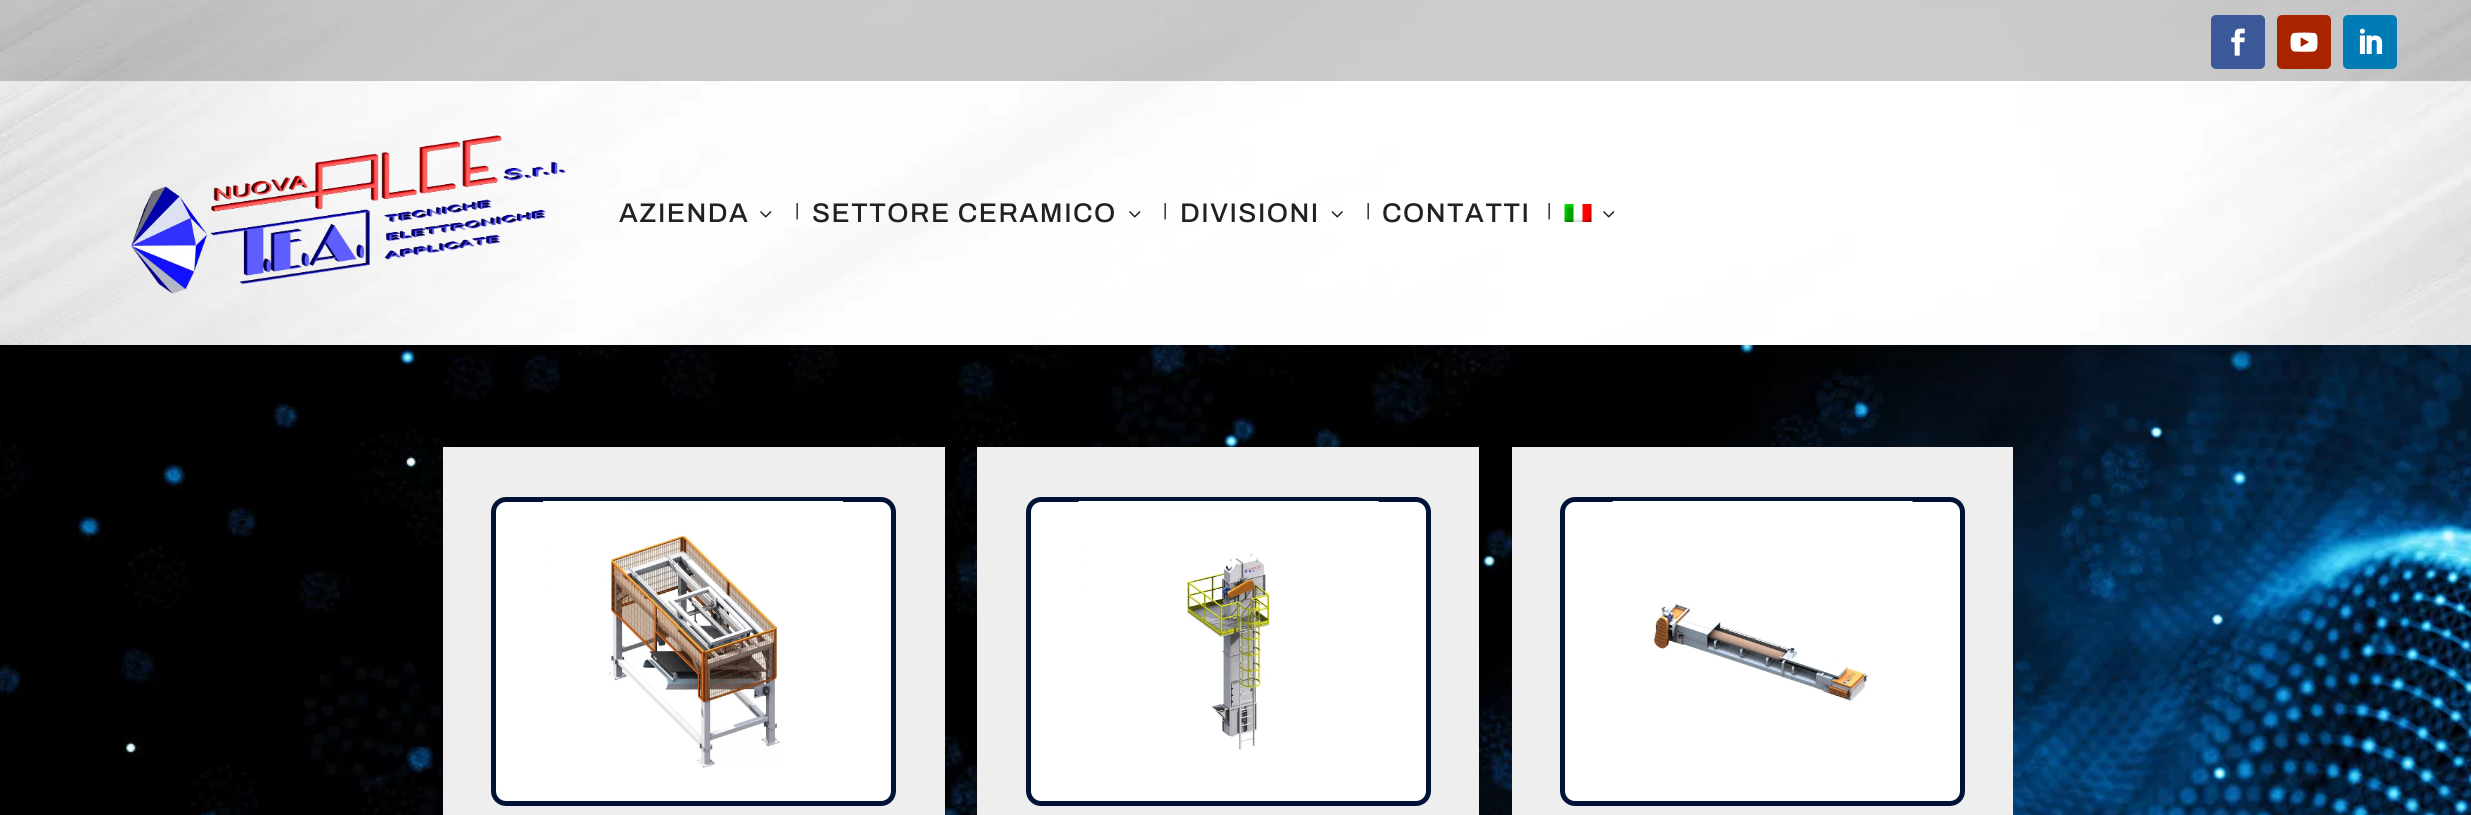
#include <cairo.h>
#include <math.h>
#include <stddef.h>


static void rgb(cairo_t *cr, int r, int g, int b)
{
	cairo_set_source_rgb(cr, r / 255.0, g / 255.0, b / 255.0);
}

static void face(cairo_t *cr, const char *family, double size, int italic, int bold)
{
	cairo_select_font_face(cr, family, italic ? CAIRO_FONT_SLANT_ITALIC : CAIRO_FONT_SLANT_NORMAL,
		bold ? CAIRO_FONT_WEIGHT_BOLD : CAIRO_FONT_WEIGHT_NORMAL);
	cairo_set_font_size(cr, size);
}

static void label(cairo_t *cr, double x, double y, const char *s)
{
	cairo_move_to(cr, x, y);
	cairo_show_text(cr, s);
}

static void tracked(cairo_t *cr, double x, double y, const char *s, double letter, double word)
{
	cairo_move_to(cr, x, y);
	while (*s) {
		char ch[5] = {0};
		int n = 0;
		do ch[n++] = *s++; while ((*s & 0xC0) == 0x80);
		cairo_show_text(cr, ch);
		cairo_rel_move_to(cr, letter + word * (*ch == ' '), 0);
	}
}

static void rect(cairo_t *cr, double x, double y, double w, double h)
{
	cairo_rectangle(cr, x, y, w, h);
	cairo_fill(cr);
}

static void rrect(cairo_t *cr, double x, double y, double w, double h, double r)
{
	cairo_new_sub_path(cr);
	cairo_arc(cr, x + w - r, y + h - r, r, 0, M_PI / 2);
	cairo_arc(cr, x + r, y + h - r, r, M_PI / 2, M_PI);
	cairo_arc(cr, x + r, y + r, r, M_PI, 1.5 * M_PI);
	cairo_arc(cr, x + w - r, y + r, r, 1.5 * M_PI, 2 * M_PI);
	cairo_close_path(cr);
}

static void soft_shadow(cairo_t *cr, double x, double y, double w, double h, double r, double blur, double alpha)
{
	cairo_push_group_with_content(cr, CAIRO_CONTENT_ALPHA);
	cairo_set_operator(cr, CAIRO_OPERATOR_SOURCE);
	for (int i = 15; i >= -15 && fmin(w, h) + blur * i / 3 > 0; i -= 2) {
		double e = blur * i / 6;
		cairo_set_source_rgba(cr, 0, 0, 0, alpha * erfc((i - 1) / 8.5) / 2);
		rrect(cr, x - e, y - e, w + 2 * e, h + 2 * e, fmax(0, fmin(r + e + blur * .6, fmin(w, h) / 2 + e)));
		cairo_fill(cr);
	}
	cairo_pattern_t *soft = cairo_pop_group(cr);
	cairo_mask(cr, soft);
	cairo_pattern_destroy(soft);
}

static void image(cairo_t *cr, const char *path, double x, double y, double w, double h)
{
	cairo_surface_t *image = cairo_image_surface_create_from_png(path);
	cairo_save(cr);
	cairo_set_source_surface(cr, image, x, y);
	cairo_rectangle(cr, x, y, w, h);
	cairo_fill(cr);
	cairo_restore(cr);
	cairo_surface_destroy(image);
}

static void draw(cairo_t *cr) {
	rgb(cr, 255, 255, 255);
	cairo_paint(cr);
	image(cr, "image10.png", 0, 345, 2471, 470);
	rgb(cr, 0, 0, 0);
	soft_shadow(cr, 9, 27, 2454, 327, 0, 7.5, 0.09);
	image(cr, "image0.png", 0, 0, 2471, 345);
	cairo_set_source_rgba(cr, 0, 0, 0, 0.2);
	rect(cr, 0, 0, 2471, 81);
	rgb(cr, 59, 89, 152);
	rrect(cr, 2211, 15, 54, 54, 5);
	cairo_fill(cr);
	image(cr, "image1.png", 2231, 28, 14, 28);
	rgb(cr, 168, 36, 0);
	rrect(cr, 2277, 15, 54, 54, 5);
	cairo_fill(cr);
	image(cr, "image2.png", 2290, 32, 28, 20);
	rgb(cr, 0, 123, 182);
	rrect(cr, 2343, 15, 54, 54, 5);
	cairo_fill(cr);
	image(cr, "image3.png", 2359, 28, 24, 26);
	image(cr, "image4.png", 131, 135, 435, 159);
	face(cr, "Archivo Medium", 27, 0, 0);
	rgb(cr, 33, 33, 33);
	tracked(cr, 619, 222, "AZIENDA", 1.5, 0);
	image(cr, "image5.png", 760, 211, 12, 7);
	face(cr, "Archivo Medium", 18, 0, 0);
	rgb(cr, 51, 51, 51);
	label(cr, 795, 216, "|");
	face(cr, "Archivo Medium", 27, 0, 0);
	rgb(cr, 33, 33, 33);
	tracked(cr, 812, 222, "SETTORE CERAMICO", 1.5, 0);
	image(cr, "image6.png", 1129, 211, 12, 7);
	face(cr, "Archivo Medium", 18, 0, 0);
	rgb(cr, 51, 51, 51);
	label(cr, 1163, 216, "|");
	face(cr, "Archivo Medium", 27, 0, 0);
	rgb(cr, 33, 33, 33);
	tracked(cr, 1180, 222, "DIVISIONI", 1.5, 0);
	image(cr, "image7.png", 1331, 211, 12, 7);
	face(cr, "Archivo Medium", 18, 0, 0);
	rgb(cr, 51, 51, 51);
	label(cr, 1366, 216, "|");
	face(cr, "Archivo Medium", 27, 0, 0);
	rgb(cr, 33, 33, 33);
	tracked(cr, 1382, 222, "CONTATTI", 1.5, 0);
	face(cr, "Archivo Medium", 18, 0, 0);
	rgb(cr, 51, 51, 51);
	label(cr, 1547, 216, "|");
	image(cr, "image8.png", 1564, 204, 28, 18);
	image(cr, "image9.png", 1603, 211, 12, 7);
	rgb(cr, 238, 238, 238);
	rect(cr, 443, 447, 502, 368);
	rgb(cr, 255, 255, 255);
	rrect(cr, 493.5, 499.5, 400, 304, 12.5);
	cairo_fill_preserve(cr);
	rgb(cr, 0, 18, 54);
	cairo_set_line_width(cr, 5);
	cairo_stroke(cr);
	image(cr, "image11.png", 543, 501, 300, 267);
	rgb(cr, 238, 238, 238);
	rect(cr, 977, 447, 502, 368);
	rgb(cr, 255, 255, 255);
	rrect(cr, 1028.5, 499.5, 400, 304, 12.5);
	cairo_fill_preserve(cr);
	rgb(cr, 0, 18, 54);
	cairo_stroke(cr);
	image(cr, "image12.png", 1078, 501, 301, 249);
	rgb(cr, 238, 238, 238);
	rect(cr, 1512, 447, 501, 368);
	rgb(cr, 255, 255, 255);
	rrect(cr, 1562.5, 499.5, 400, 304, 12.5);
	cairo_fill_preserve(cr);
	rgb(cr, 0, 18, 54);
	cairo_stroke(cr);
	image(cr, "image13.png", 1612, 501, 301, 201);
}

int main(void) {
	cairo_surface_t *surface = cairo_image_surface_create(CAIRO_FORMAT_RGB24, 2471, 815);
	cairo_t *cr = cairo_create(surface);
	cairo_font_options_t *options = cairo_font_options_create();
	cairo_font_options_set_hint_metrics(options, CAIRO_HINT_METRICS_OFF);
	cairo_font_options_set_hint_style(options, CAIRO_HINT_STYLE_NONE);
	cairo_set_font_options(cr, options);
	cairo_set_miter_limit(cr, 4);
	draw(cr);
	cairo_surface_write_to_png(surface, "render.png");
	cairo_font_options_destroy(options);
	cairo_destroy(cr);
	cairo_surface_destroy(surface);
	return 0;
}
